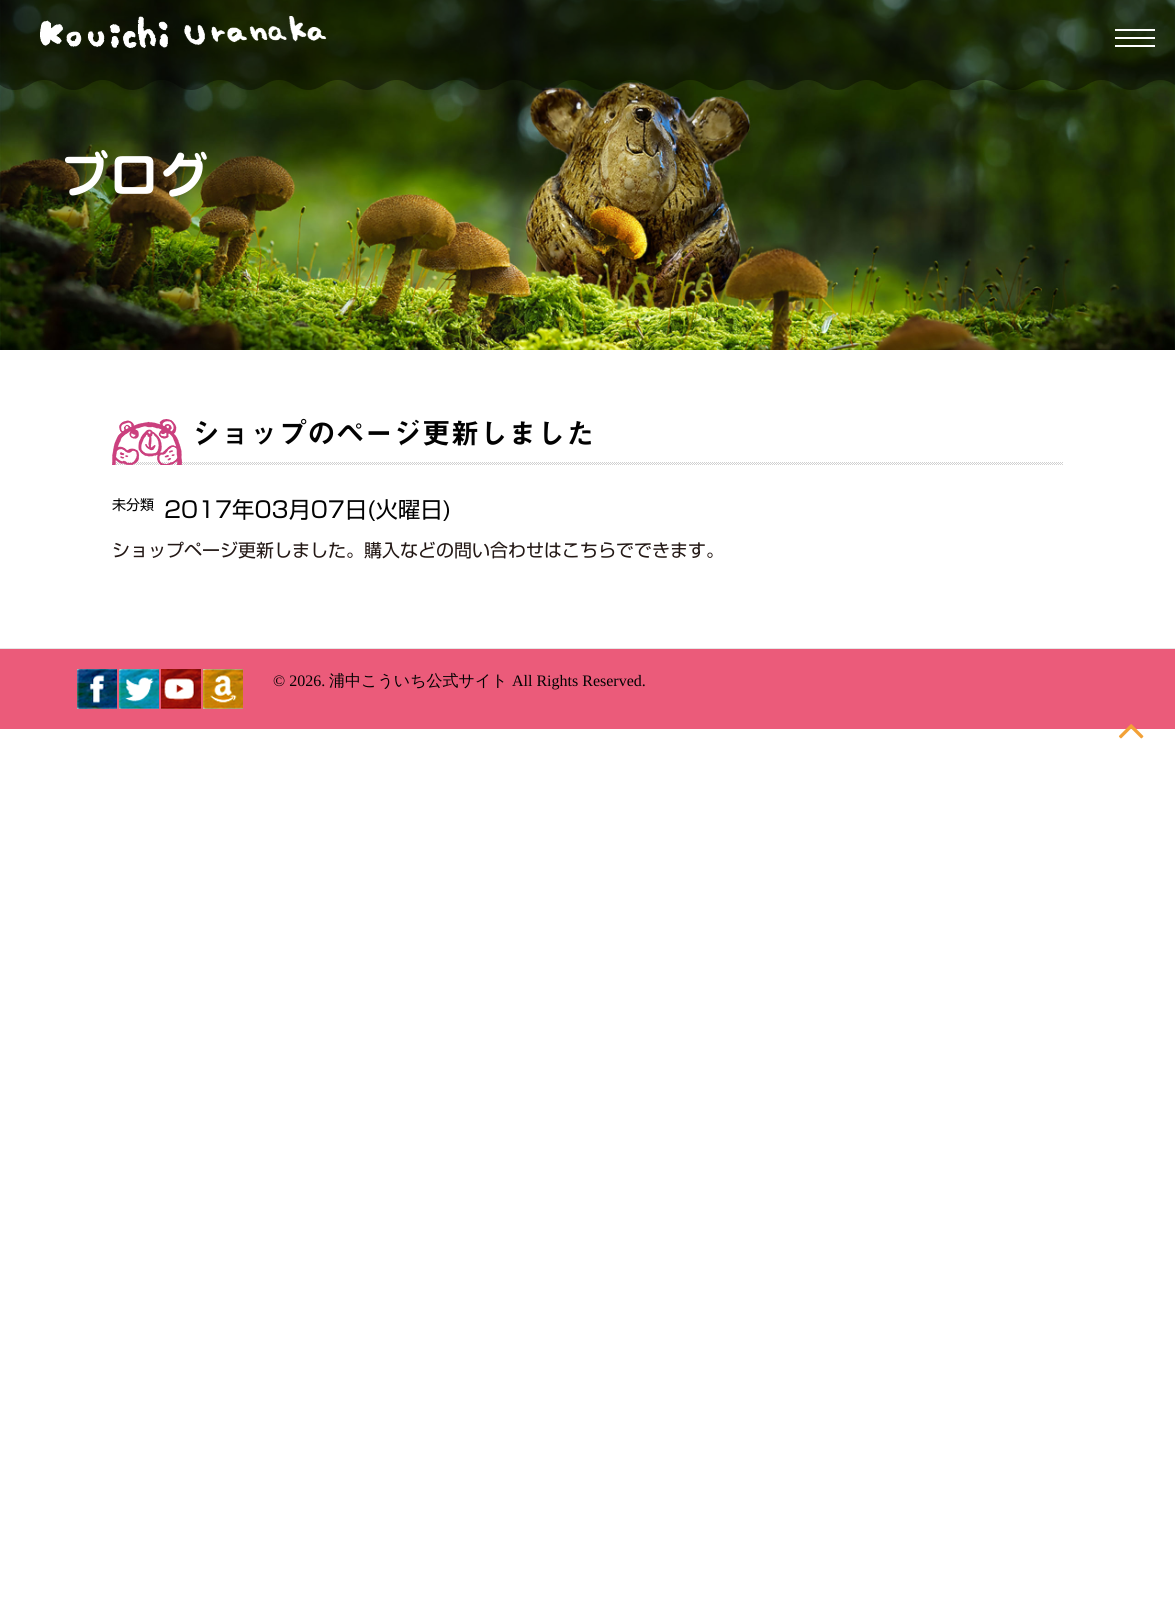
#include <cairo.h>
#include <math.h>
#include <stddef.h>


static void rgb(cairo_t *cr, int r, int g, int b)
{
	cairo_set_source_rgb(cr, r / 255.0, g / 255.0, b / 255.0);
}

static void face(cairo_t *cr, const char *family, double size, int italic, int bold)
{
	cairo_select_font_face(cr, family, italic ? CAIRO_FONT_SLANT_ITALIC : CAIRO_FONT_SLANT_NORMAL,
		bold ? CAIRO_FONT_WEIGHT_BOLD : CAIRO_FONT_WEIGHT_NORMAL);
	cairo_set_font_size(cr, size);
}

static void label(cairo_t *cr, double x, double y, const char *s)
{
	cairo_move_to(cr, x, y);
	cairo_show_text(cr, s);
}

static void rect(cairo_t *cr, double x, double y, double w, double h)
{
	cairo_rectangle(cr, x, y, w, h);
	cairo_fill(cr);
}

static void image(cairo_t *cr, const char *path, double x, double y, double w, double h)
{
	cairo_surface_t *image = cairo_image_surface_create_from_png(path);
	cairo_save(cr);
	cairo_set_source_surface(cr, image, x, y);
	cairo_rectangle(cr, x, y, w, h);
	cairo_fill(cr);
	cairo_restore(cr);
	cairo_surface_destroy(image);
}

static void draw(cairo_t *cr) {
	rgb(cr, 255, 255, 255);
	cairo_paint(cr);
	image(cr, "image2.png", 0, 0, 1175, 350);
	cairo_set_source_rgba(cr, 0, 0, 0, 0.4);
	rect(cr, 0, 0, 1175, 60);
	image(cr, "image0.png", 40, 16, 287, 32);
	rgb(cr, 255, 255, 255);
	rect(cr, 1115, 29, 40, 2);
	rect(cr, 1115, 37, 40, 2);
	rect(cr, 1115, 45, 40, 2);
	image(cr, "image1.png", 0, 60, 1175, 30);
	face(cr, "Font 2 SemiBold", 50, 0, 0);
	label(cr, 59, 194, "ブログ");
	image(cr, "image3.png", 112, 462, 951, 3);
	image(cr, "image4.png", 112, 419, 70, 46);
	face(cr, "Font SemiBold", 28.75, 0, 0);
	rgb(cr, 2, 2, 2);
	label(cr, 192, 444, "ショップのページ更新しました");
	face(cr, "Font", 14, 0, 0);
	label(cr, 112, 510, "未分類");
	face(cr, "Font", 22.4, 0, 0);
	label(cr, 164, 518, "2017年03月07日(火曜日)");
	face(cr, "Font 2", 18, 0, 0);
	rgb(cr, 35, 24, 21);
	label(cr, 112, 557, "ショップページ更新しました。購入などの問い合わせはこちらでできます。");
	rgb(cr, 235, 91, 122);
	rect(cr, 0, 649, 1175, 80);
	rgb(cr, 229, 229, 229);
	rect(cr, 0, 648, 1175, 1);
	image(cr, "image5.png", 77, 669, 40, 40);
	image(cr, "image6.png", 119, 669, 40, 40);
	image(cr, "image7.png", 161, 669, 40, 40);
	image(cr, "image8.png", 203, 669, 40, 40);
	face(cr, "Liberation Serif", 16, 0, 0);
	rgb(cr, 2, 2, 2);
	label(cr, 273, 686, "© 2026.");
	face(cr, "WenQuanYi Zen Hei Medium", 16, 0, 0);
	label(cr, 329, 686, "浦中こういち公式サイト");
	face(cr, "Liberation Serif", 16, 0, 0);
	label(cr, 512, 686, "All Rights Reserved.");
	image(cr, "image9.png", 1118, 724, 26, 15);
}

int main(void) {
	cairo_surface_t *surface = cairo_image_surface_create(CAIRO_FORMAT_RGB24, 1175, 1624);
	cairo_t *cr = cairo_create(surface);
	cairo_font_options_t *options = cairo_font_options_create();
	cairo_font_options_set_hint_metrics(options, CAIRO_HINT_METRICS_OFF);
	cairo_font_options_set_hint_style(options, CAIRO_HINT_STYLE_NONE);
	cairo_set_font_options(cr, options);
	cairo_set_miter_limit(cr, 4);
	draw(cr);
	cairo_surface_write_to_png(surface, "render.png");
	cairo_font_options_destroy(options);
	cairo_destroy(cr);
	cairo_surface_destroy(surface);
	return 0;
}
